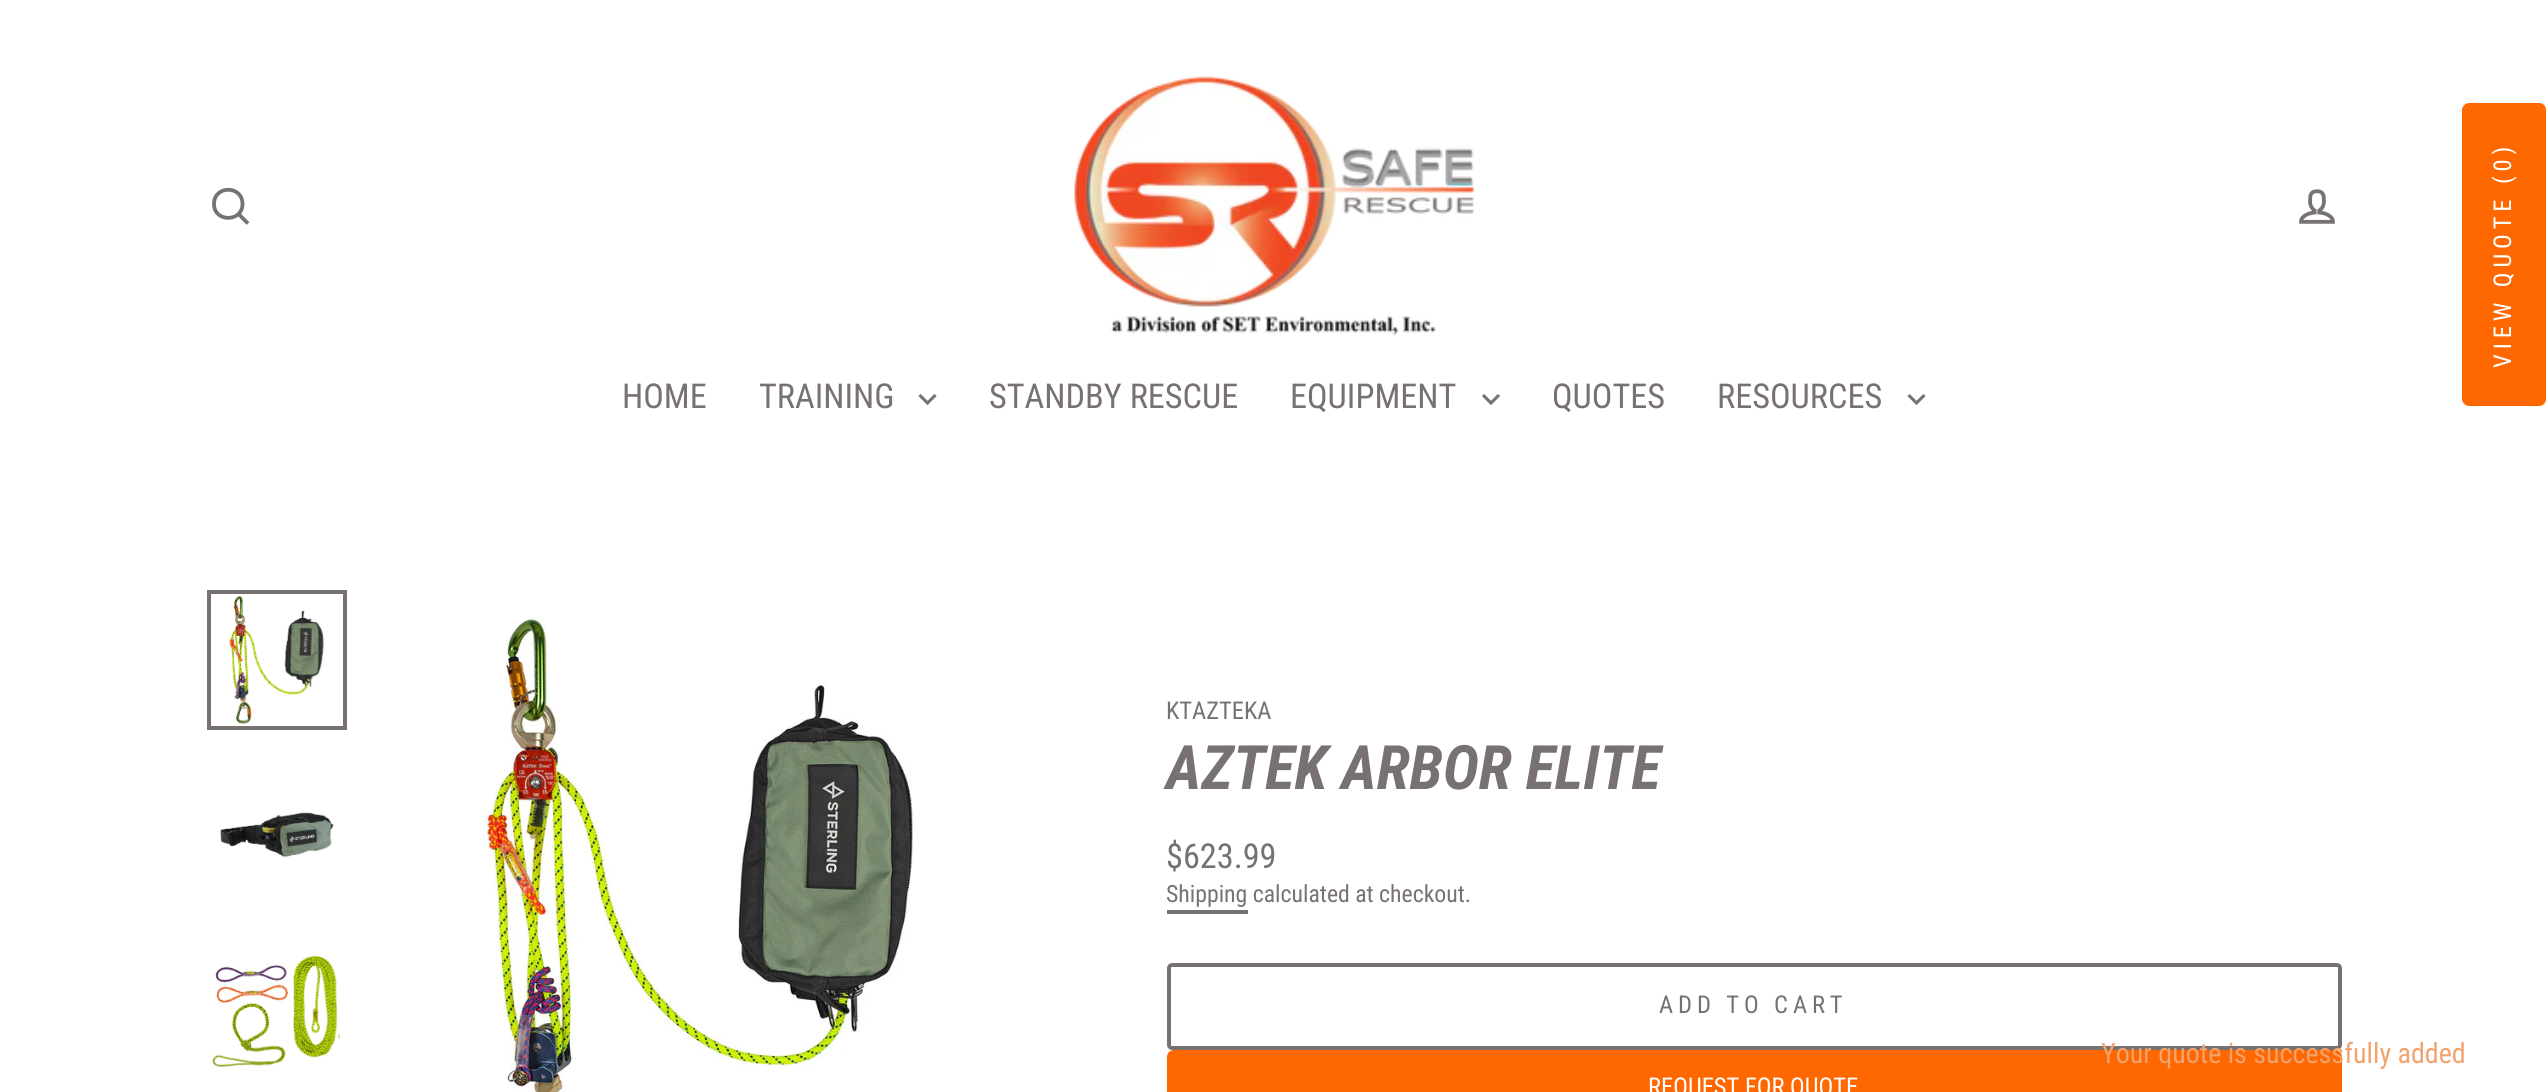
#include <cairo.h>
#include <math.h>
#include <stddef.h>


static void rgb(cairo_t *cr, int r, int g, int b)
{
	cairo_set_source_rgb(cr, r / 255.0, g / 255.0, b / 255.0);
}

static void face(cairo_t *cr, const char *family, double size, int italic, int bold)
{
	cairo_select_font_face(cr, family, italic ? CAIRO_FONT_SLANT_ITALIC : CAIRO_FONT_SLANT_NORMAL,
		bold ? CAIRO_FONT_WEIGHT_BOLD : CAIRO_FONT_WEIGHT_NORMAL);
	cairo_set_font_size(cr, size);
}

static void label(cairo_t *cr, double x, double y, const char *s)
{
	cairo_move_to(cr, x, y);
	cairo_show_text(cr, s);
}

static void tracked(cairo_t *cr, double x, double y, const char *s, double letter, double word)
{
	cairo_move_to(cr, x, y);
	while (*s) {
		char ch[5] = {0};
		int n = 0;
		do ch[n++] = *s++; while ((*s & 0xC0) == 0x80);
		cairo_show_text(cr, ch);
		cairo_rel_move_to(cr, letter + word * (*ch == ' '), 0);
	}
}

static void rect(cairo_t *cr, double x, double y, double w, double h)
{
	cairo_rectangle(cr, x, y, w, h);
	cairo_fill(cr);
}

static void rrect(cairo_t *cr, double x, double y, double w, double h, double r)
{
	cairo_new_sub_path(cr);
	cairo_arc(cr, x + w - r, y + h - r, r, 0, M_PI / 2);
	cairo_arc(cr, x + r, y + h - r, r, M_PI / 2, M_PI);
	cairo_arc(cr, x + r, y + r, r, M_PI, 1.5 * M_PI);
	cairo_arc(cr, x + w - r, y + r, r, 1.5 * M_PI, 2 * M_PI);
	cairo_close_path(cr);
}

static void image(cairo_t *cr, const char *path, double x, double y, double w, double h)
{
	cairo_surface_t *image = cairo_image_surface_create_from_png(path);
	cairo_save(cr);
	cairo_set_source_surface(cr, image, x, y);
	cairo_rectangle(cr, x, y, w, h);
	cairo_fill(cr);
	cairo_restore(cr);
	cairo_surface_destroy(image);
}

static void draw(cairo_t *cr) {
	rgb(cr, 255, 255, 255);
	cairo_paint(cr);
	cairo_new_path(cr);
	cairo_move_to(cr, 242.5, 204);
	cairo_curve_to(cr, 242.5, 222.5, 214, 222.5, 214, 204);
	cairo_curve_to(cr, 214, 185, 242.5, 185, 242.5, 204);
	cairo_close_path(cr);
	cairo_move_to(cr, 248, 223.5);
	cairo_line_to(cr, 238.5, 214);
	rgb(cr, 120, 113, 113);
	cairo_set_line_width(cr, 3.8);
	cairo_stroke(cr);
	image(cr, "image0.png", 1074, 76, 400, 260);
	image(cr, "image1.png", 2299, 189, 36, 35);
	face(cr, "Roboto Condensed", 34.25, 0, 0);
	label(cr, 622, 408, "HOME");
	label(cr, 759, 408, "TRAINING");
	cairo_new_path(cr);
	cairo_move_to(cr, 919.5, 395);
	cairo_line_to(cr, 927.5, 403);
	cairo_line_to(cr, 935.5, 395);
	cairo_set_line_width(cr, 3.1);
	cairo_stroke(cr);
	label(cr, 989, 408, "STANDBY RESCUE");
	label(cr, 1290, 408, "EQUIPMENT");
	cairo_new_path(cr);
	cairo_move_to(cr, 1483, 395);
	cairo_line_to(cr, 1491, 403);
	cairo_line_to(cr, 1499, 395);
	cairo_stroke(cr);
	label(cr, 1552, 408, "QUOTES");
	label(cr, 1717, 408, "RESOURCES");
	cairo_new_path(cr);
	cairo_move_to(cr, 1908.5, 395);
	cairo_line_to(cr, 1916.5, 403);
	cairo_line_to(cr, 1924.5, 395);
	cairo_stroke(cr);
	image(cr, "image2.png", 229, 596, 95, 128);
	cairo_rectangle(cr, 209, 592, 136, 136);
	cairo_set_line_width(cr, 4);
	cairo_stroke(cr);
	image(cr, "image3.png", 220, 812, 114, 45);
	image(cr, "image4.png", 212, 956, 129, 112);
	image(cr, "image5.png", 483, 617, 435, 475);
	face(cr, "Roboto Condensed", 24.5, 0, 0);
	label(cr, 1166, 719, "KTAZTEKA");
	face(cr, "Roboto Condensed", 61.25, 1, 1);
	label(cr, 1166, 789, "AZTEK ARBOR ELITE");
	face(cr, "Roboto Condensed", 34.25, 0, 0);
	label(cr, 1166, 868, "$623.99");
	face(cr, "Roboto Condensed", 23.75, 0, 0);
	label(cr, 1166, 902, "Shipping calculated at checkout.");
	rect(cr, 1167, 910, 81, 4);
	rrect(cr, 1169, 965, 1171, 83, 3);
	cairo_stroke(cr);
	face(cr, "Roboto Condensed", 24.5, 0, 0);
	tracked(cr, 1659, 1013, "ADD TO CART", 4.9, 0);
	rgb(cr, 255, 103, 0);
	rrect(cr, 1167, 1050, 1175, 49, 7);
	cairo_fill(cr);
	rgb(cr, 255, 255, 255);
	label(cr, 1648, 1095, "REQUEST FOR QUOTE");
	rgb(cr, 255, 103, 0);
	cairo_new_path(cr);
	cairo_move_to(cr, 2462, 399);
	cairo_line_to(cr, 2462, 110);
	cairo_curve_to(cr, 2462, 106, 2466, 103, 2469, 103);
	cairo_line_to(cr, 2539, 103);
	cairo_curve_to(cr, 2543, 103, 2546, 106, 2546, 110);
	cairo_line_to(cr, 2546, 399);
	cairo_curve_to(cr, 2546, 403, 2543, 406, 2539, 406);
	cairo_line_to(cr, 2469, 406);
	cairo_curve_to(cr, 2466, 406, 2462, 403, 2462, 399);
	cairo_close_path(cr);
	cairo_fill(cr);
	rgb(cr, 255, 255, 255);
	cairo_save(cr);
	cairo_translate(cr, 2511, 368);
	cairo_rotate(cr, -90 * M_PI / 180);
	tracked(cr, 0, 0, "VIEW QUOTE (0)", 4.9, 0);
	cairo_restore(cr);
	face(cr, "Roboto Condensed", 28, 0, 0);
	rgb(cr, 242, 162, 108);
	label(cr, 2101, 1063, "Your quote is successfully added");
}

int main(void) {
	cairo_surface_t *surface = cairo_image_surface_create(CAIRO_FORMAT_RGB24, 2546, 1092);
	cairo_t *cr = cairo_create(surface);
	cairo_font_options_t *options = cairo_font_options_create();
	cairo_font_options_set_hint_metrics(options, CAIRO_HINT_METRICS_OFF);
	cairo_font_options_set_hint_style(options, CAIRO_HINT_STYLE_NONE);
	cairo_set_font_options(cr, options);
	cairo_set_miter_limit(cr, 4);
	draw(cr);
	cairo_surface_write_to_png(surface, "render.png");
	cairo_font_options_destroy(options);
	cairo_destroy(cr);
	cairo_surface_destroy(surface);
	return 0;
}
